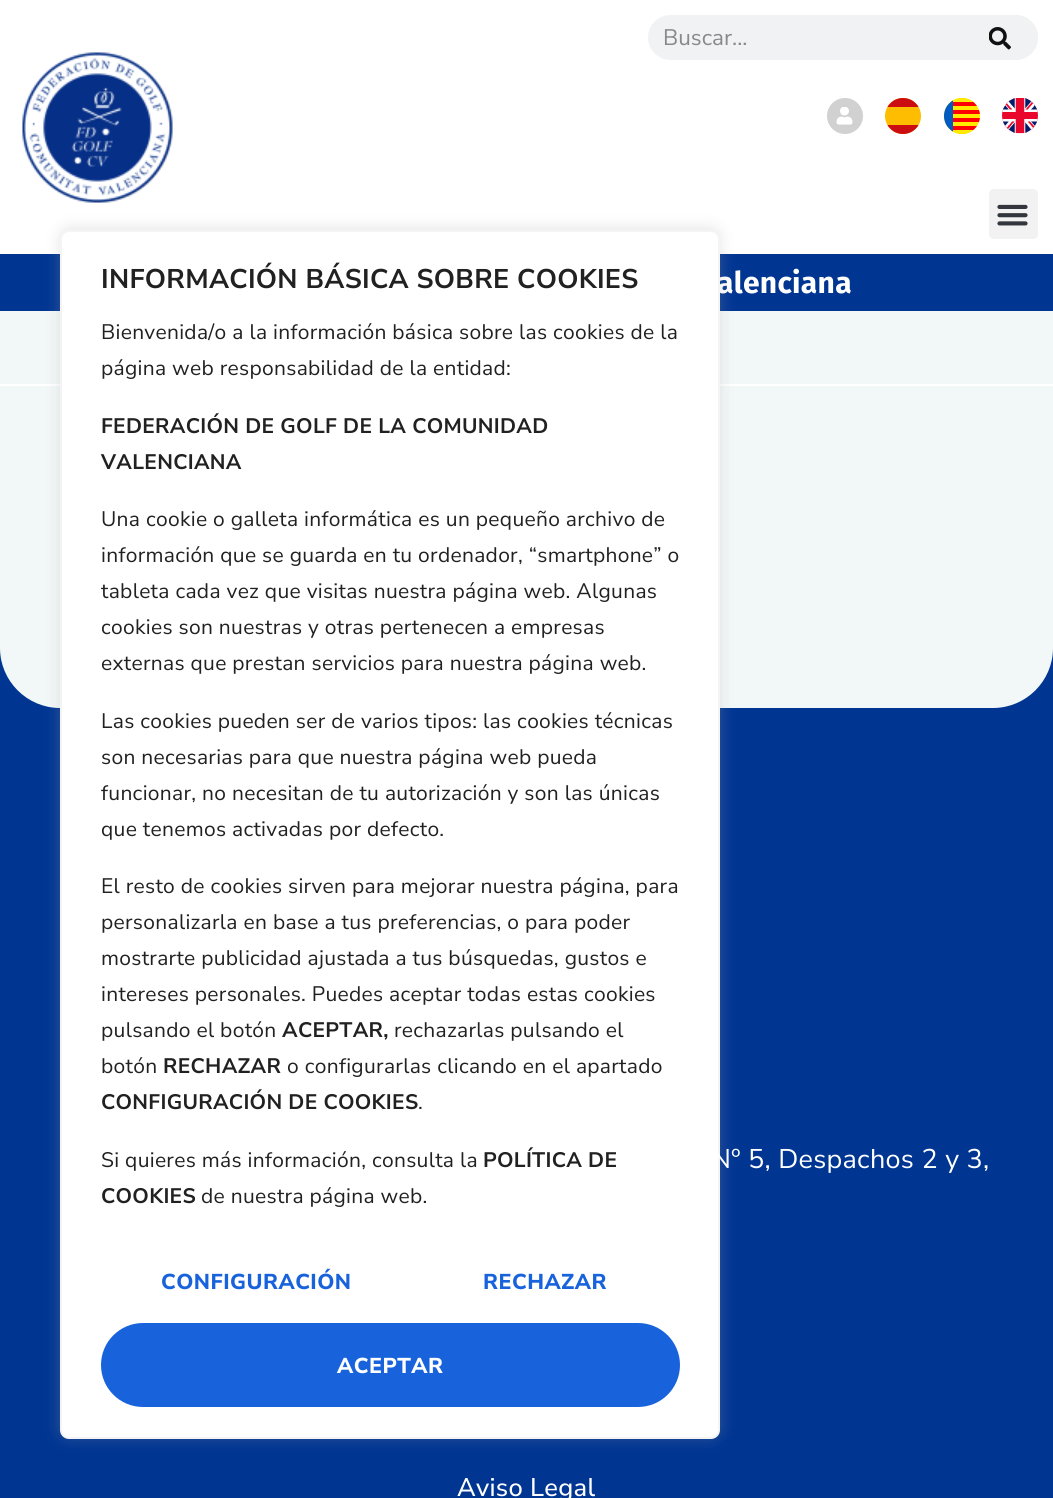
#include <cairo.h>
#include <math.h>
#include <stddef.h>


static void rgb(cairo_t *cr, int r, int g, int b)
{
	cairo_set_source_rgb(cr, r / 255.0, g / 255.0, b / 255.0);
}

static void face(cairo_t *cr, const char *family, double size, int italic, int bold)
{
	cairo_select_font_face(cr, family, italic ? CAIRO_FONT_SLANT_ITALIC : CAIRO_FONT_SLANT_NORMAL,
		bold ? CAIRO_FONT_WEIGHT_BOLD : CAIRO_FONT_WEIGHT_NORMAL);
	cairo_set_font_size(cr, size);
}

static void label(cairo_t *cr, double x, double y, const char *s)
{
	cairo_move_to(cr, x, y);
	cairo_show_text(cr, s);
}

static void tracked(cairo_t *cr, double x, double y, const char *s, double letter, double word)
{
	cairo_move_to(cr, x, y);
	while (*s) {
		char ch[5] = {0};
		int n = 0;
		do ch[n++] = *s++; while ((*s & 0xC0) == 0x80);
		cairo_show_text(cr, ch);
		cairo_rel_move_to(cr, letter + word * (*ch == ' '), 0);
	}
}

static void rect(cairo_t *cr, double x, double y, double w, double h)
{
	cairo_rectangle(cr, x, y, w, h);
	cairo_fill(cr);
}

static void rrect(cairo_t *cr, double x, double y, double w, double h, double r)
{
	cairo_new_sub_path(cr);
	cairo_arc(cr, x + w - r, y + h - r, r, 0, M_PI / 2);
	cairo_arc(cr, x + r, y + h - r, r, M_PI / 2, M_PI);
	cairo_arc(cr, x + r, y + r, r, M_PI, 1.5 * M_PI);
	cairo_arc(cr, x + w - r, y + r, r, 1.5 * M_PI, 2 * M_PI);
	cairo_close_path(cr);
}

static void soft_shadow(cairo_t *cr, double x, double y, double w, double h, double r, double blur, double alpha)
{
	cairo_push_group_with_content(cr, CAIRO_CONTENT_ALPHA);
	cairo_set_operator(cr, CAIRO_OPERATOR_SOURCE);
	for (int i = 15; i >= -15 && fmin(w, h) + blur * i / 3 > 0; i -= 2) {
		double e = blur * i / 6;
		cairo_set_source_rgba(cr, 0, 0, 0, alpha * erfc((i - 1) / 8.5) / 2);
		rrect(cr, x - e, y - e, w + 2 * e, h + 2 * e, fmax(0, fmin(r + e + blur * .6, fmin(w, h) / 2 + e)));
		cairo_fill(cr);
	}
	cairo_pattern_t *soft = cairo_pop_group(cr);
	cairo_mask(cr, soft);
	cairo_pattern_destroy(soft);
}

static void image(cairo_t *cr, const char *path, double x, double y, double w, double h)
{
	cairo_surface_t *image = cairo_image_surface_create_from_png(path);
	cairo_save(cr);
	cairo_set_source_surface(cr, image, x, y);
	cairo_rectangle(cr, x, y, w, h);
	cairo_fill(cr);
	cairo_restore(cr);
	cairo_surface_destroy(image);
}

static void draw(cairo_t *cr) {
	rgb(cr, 255, 255, 255);
	cairo_paint(cr);
	rgb(cr, 241, 242, 243);
	rrect(cr, 648, 15, 390, 45, 22.5);
	cairo_fill(cr);
	face(cr, "Nunito Sans", 22.5, 0, 0);
	rgb(cr, 134, 138, 142);
	label(cr, 663, 45, "Buscar...");
	rgb(cr, 241, 242, 243);
	cairo_new_path(cr);
	cairo_move_to(cr, 963, 15);
	cairo_line_to(cr, 1015.5, 15);
	cairo_curve_to(cr, 1028, 15, 1038, 25, 1038, 37.5);
	cairo_curve_to(cr, 1038, 50, 1028, 60, 1015.5, 60);
	cairo_line_to(cr, 963, 60);
	cairo_close_path(cr);
	cairo_fill(cr);
	image(cr, "image0.png", 989, 27, 22, 23);
	rgb(cr, 209, 209, 209);
	cairo_arc(cr, 845, 116, 18, 0, 2 * M_PI);
	cairo_fill(cr);
	image(cr, "image1.png", 836, 107, 17, 18);
	rgb(cr, 254, 189, 0);
	cairo_arc(cr, 903, 116, 18, 0, 2 * M_PI);
	cairo_fill(cr);
	cairo_save(cr);
	rrect(cr, 885, 98, 36, 36, 18);
	cairo_clip(cr);
	rgb(cr, 203, 12, 17);
	rect(cr, 887, 98, 32, 9);
	rect(cr, 887, 125, 32, 9);
	cairo_restore(cr);
	image(cr, "image2.png", 944, 98, 36, 36);
	image(cr, "image3.png", 1002, 98, 36, 36);
	rgb(cr, 242, 242, 242);
	rrect(cr, 989, 189, 49, 50, 5);
	cairo_fill(cr);
	image(cr, "image4.png", 997, 204, 31, 22);
	image(cr, "image5.png", 22, 52, 151, 151);
	rgb(cr, 0, 53, 146);
	rect(cr, 0, 254, 1053, 57);
	face(cr, "Fira Sans", 30, 0, 1);
	rgb(cr, 255, 255, 255);
	tracked(cr, 717, 293, "alenciana", 0.3, 0);
	rgb(cr, 242, 247, 248);
	rect(cr, 0, 311, 1053, 73);
	rgb(cr, 0, 53, 146);
	rect(cr, 0, 648, 1053, 850);
	rgb(cr, 242, 247, 248);
	cairo_new_path(cr);
	cairo_move_to(cr, 0, 386);
	cairo_line_to(cr, 1053, 386);
	cairo_line_to(cr, 1053, 648);
	cairo_curve_to(cr, 1053, 681, 1026, 708, 993, 708);
	cairo_line_to(cr, 60, 708);
	cairo_curve_to(cr, 27, 708, 0, 681, 0, 648);
	cairo_close_path(cr);
	cairo_fill(cr);
	rgb(cr, 172, 171, 171);
	soft_shadow(cr, 60, 228, 660, 1209, 9, 7.5, 0.3);
	rgb(cr, 255, 255, 255);
	rrect(cr, 61, 231, 658, 1207, 8);
	cairo_fill_preserve(cr);
	rgb(cr, 244, 244, 244);
	cairo_stroke(cr);
	face(cr, "Nunito Sans", 27, 0, 1);
	rgb(cr, 33, 33, 33);
	tracked(cr, 101, 288, "INFORMACIÓN BÁSICA SOBRE COOKIES", 0.3, 0);
	face(cr, "Nunito Sans", 21, 0, 0);
	tracked(cr, 101, 339, "Bienvenida/o a la información básica sobre las cookies de la", 0.3, 0);
	tracked(cr, 101, 375, "página web responsabilidad de la entidad:", 0.3, 0);
	face(cr, "Nunito Sans", 21, 0, 1);
	tracked(cr, 101, 433, "FEDERACIÓN DE GOLF DE LA COMUNIDAD", 0.3, 0);
	tracked(cr, 101, 469, "VALENCIANA", 0.3, 0);
	face(cr, "Nunito Sans", 21, 0, 0);
	tracked(cr, 101, 526, "Una cookie o galleta informática es un pequeño archivo de", 0.3, 0);
	tracked(cr, 101, 562, "información que se guarda en tu ordenador, “smartphone” o", 0.3, 0);
	tracked(cr, 101, 598, "tableta cada vez que visitas nuestra página web. Algunas", 0.3, 0);
	tracked(cr, 101, 634, "cookies son nuestras y otras pertenecen a empresas", 0.3, 0);
	tracked(cr, 101, 670, "externas que prestan servicios para nuestra página web.", 0.3, 0);
	tracked(cr, 101, 728, "Las cookies pueden ser de varios tipos: las cookies técnicas", 0.3, 0);
	tracked(cr, 101, 764, "son necesarias para que nuestra página web pueda", 0.3, 0);
	tracked(cr, 101, 800, "funcionar, no necesitan de tu autorización y son las únicas", 0.3, 0);
	tracked(cr, 101, 836, "que tenemos activadas por defecto.", 0.3, 0);
	tracked(cr, 101, 893, "El resto de cookies sirven para mejorar nuestra página, para", 0.3, 0);
	tracked(cr, 101, 929, "personalizarla en base a tus preferencias, o para poder", 0.3, 0);
	tracked(cr, 101, 965, "mostrarte publicidad ajustada a tus búsquedas, gustos e", 0.3, 0);
	tracked(cr, 101, 1001, "intereses personales. Puedes aceptar todas estas cookies", 0.3, 0);
	tracked(cr, 101, 1037, "pulsando el botón", 0.3, 0);
	face(cr, "Nunito Sans", 21, 0, 1);
	tracked(cr, 282, 1037, "ACEPTAR,", 0.3, 0);
	face(cr, "Nunito Sans", 21, 0, 0);
	tracked(cr, 394, 1037, "rechazarlas pulsando el", 0.3, 0);
	tracked(cr, 101, 1073, "botón", 0.3, 0);
	face(cr, "Nunito Sans", 21, 0, 1);
	tracked(cr, 163, 1073, "RECHAZAR", 0.3, 0);
	face(cr, "Nunito Sans", 21, 0, 0);
	tracked(cr, 287, 1073, "o configurarlas clicando en el apartado", 0.3, 0);
	face(cr, "Nunito Sans", 21, 0, 1);
	tracked(cr, 101, 1109, "CONFIGURACIÓN DE COOKIES", 0.3, 0);
	face(cr, "Nunito Sans", 21, 0, 0);
	tracked(cr, 418, 1109, ".", 0.3, 0);
	tracked(cr, 101, 1167, "Si quieres más información, consulta la", 0.3, 0);
	face(cr, "Nunito Sans", 21, 0, 1);
	tracked(cr, 483, 1167, "POLÍTICA DE", 0.3, 0);
	tracked(cr, 101, 1203, "COOKIES", 0.3, 0);
	face(cr, "Nunito Sans", 21, 0, 0);
	tracked(cr, 201, 1203, "de nuestra página web.", 0.3, 0);
	face(cr, "Nunito Sans ExtraBold", 21.5, 0, 0);
	rgb(cr, 24, 99, 220);
	tracked(cr, 161, 1289, "CONFIGURACIÓN", 0.5, 0);
	tracked(cr, 483, 1289, "RECHAZAR", 0.5, 0);
	rrect(cr, 101, 1323, 579, 84, 42);
	cairo_fill(cr);
	rgb(cr, 255, 255, 255);
	tracked(cr, 337, 1373, "ACEPTAR", 0.5, 0);
	face(cr, "Nunito Sans", 27, 0, 0);
	tracked(cr, 711, 1168, "Nº 5, Despachos 2 y 3,", 0.3, 0);
	face(cr, "Nunito Sans Medium", 25.5, 0, 0);
	tracked(cr, 457, 1496, "Aviso Legal", 0.3, 0);
}

int main(void) {
	cairo_surface_t *surface = cairo_image_surface_create(CAIRO_FORMAT_RGB24, 1053, 1498);
	cairo_t *cr = cairo_create(surface);
	cairo_font_options_t *options = cairo_font_options_create();
	cairo_font_options_set_hint_metrics(options, CAIRO_HINT_METRICS_OFF);
	cairo_font_options_set_hint_style(options, CAIRO_HINT_STYLE_NONE);
	cairo_set_font_options(cr, options);
	cairo_set_miter_limit(cr, 4);
	draw(cr);
	cairo_surface_write_to_png(surface, "render.png");
	cairo_font_options_destroy(options);
	cairo_destroy(cr);
	cairo_surface_destroy(surface);
	return 0;
}
